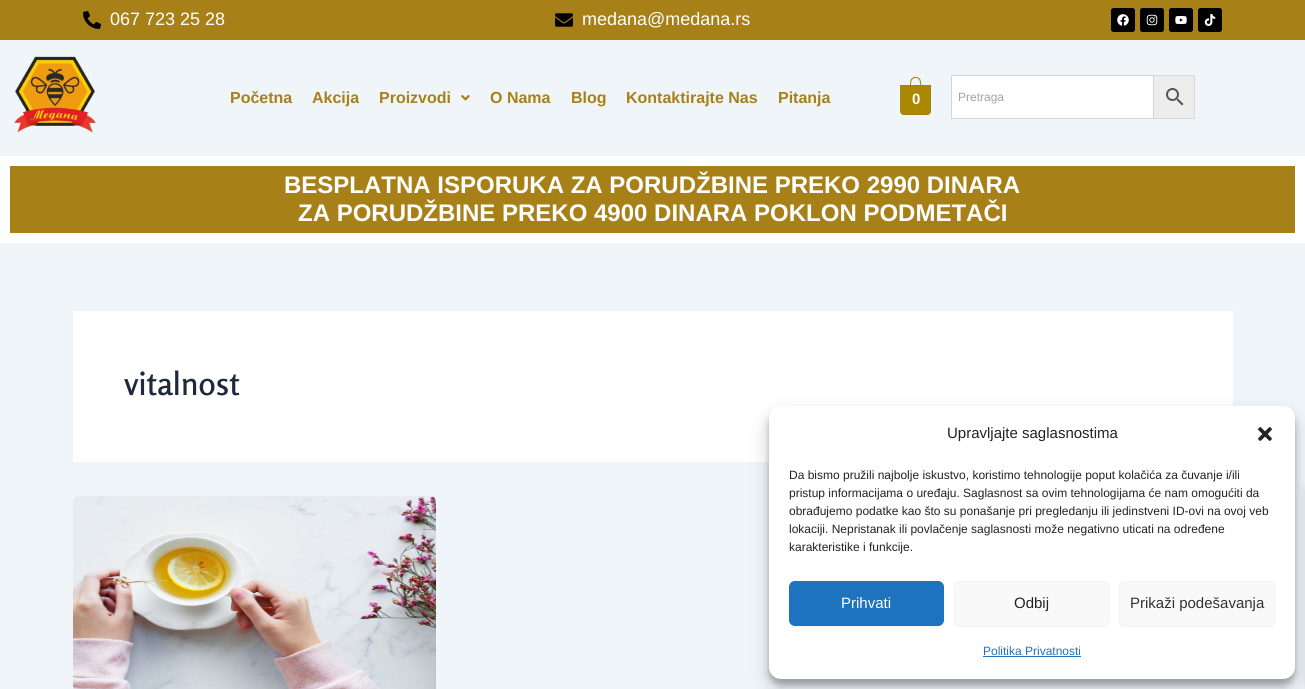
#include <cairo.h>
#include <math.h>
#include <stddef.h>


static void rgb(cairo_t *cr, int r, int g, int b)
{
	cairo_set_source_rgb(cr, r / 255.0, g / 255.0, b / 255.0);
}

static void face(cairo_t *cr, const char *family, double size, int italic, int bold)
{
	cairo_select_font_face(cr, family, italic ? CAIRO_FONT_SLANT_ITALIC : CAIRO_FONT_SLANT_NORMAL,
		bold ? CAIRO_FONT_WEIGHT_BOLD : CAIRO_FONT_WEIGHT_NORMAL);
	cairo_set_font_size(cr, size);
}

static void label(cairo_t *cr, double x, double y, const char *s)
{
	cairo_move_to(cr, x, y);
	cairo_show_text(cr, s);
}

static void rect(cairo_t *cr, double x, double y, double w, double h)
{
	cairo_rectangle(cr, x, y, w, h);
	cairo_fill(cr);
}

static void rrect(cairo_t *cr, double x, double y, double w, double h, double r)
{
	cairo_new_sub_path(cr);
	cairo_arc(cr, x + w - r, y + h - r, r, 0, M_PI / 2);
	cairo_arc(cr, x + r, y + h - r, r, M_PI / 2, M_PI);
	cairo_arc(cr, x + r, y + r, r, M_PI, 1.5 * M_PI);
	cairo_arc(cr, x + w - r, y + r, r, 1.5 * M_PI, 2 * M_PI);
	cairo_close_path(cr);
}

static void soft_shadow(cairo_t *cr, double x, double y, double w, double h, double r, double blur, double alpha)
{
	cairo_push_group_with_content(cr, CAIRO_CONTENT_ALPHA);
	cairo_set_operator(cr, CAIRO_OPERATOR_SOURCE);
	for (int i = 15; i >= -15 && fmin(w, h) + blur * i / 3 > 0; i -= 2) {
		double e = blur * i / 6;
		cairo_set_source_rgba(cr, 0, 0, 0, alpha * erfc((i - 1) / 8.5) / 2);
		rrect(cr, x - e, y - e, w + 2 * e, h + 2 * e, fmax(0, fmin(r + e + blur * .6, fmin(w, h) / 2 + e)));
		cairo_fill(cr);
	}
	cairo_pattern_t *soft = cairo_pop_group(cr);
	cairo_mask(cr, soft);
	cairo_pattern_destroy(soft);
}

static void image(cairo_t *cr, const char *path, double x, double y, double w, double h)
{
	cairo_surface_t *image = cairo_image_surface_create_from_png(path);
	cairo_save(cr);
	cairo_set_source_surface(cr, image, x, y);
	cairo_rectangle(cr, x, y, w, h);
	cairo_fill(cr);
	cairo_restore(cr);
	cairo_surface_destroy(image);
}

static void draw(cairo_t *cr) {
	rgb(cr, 240, 245, 250);
	cairo_paint(cr);
	rgb(cr, 168, 128, 24);
	rect(cr, 0, 0, 1305, 40);
	image(cr, "image0.png", 83, 11, 18, 18);
	face(cr, "Liberation Sans", 18, 0, 0);
	rgb(cr, 255, 255, 255);
	label(cr, 110, 25, "067 723 25 28");
	image(cr, "image1.png", 555, 13, 18, 14);
	label(cr, 582, 25, "medana@medana.rs");
	rgb(cr, 0, 0, 0);
	rrect(cr, 1111, 8, 24, 24, 2.5);
	cairo_fill(cr);
	image(cr, "image2.png", 1117, 14, 12, 12);
	rrect(cr, 1140, 8, 24, 24, 2.5);
	cairo_fill(cr);
	image(cr, "image3.png", 1146, 14, 12, 12);
	rrect(cr, 1169, 8, 24, 24, 2.5);
	cairo_fill(cr);
	image(cr, "image4.png", 1175, 16, 12, 8);
	rrect(cr, 1198, 8, 24, 24, 2.5);
	cairo_fill(cr);
	image(cr, "image5.png", 1204, 14, 12, 12);
	image(cr, "image6.png", 14, 56, 82, 77);
	face(cr, "Liberation Sans", 16, 0, 1);
	rgb(cr, 168, 128, 24);
	label(cr, 230, 103, "Početna");
	label(cr, 312, 103, "Akcija");
	label(cr, 379, 103, "Proizvodi");
	image(cr, "image7.png", 461, 95, 9, 6);
	label(cr, 490, 103, "O Nama");
	label(cr, 571, 103, "Blog");
	label(cr, 626, 103, "Kontaktirajte Nas");
	label(cr, 778, 103, "Pitanja");
	rgb(cr, 170, 136, 1);
	cairo_new_path(cr);
	cairo_move_to(cr, 900.5, 85.5);
	cairo_line_to(cr, 930.5, 85.5);
	cairo_line_to(cr, 930.5, 111);
	cairo_curve_to(cr, 930.5, 113, 929, 114.5, 927, 114.5);
	cairo_line_to(cr, 904, 114.5);
	cairo_curve_to(cr, 902, 114.5, 900.5, 113, 900.5, 111);
	cairo_close_path(cr);
	cairo_fill_preserve(cr);
	rgb(cr, 168, 128, 24);
	cairo_set_line_width(cr, 1);
	cairo_stroke(cr);
	cairo_set_fill_rule(cr, CAIRO_FILL_RULE_EVEN_ODD);
	cairo_new_path(cr);
	cairo_move_to(cr, 915.5, 77);
	cairo_curve_to(cr, 922.5, 77, 921, 84.5, 921, 89);
	cairo_line_to(cr, 910, 89);
	cairo_curve_to(cr, 910, 84.5, 909, 77, 915.5, 77);
	cairo_close_path(cr);
	cairo_move_to(cr, 915.5, 78);
	cairo_curve_to(cr, 921.5, 78, 920, 85.5, 920, 89);
	cairo_line_to(cr, 911, 89);
	cairo_curve_to(cr, 911, 85.5, 910, 78, 915.5, 78);
	cairo_close_path(cr);
	cairo_fill(cr);
	face(cr, "Liberation Sans", 15, 0, 1);
	rgb(cr, 255, 255, 255);
	label(cr, 912, 104, "0");
	rgb(cr, 237, 237, 237);
	cairo_rectangle(cr, 1153.5, 75.5, 41, 43);
	cairo_fill_preserve(cr);
	rgb(cr, 216, 216, 216);
	cairo_stroke(cr);
	rgb(cr, 255, 255, 255);
	cairo_rectangle(cr, 951.5, 75.5, 202, 43);
	cairo_fill_preserve(cr);
	rgb(cr, 209, 213, 219);
	cairo_stroke(cr);
	face(cr, "Liberation Sans", 12, 0, 0);
	rgb(cr, 156, 163, 175);
	label(cr, 958, 101, "Pretraga");
	image(cr, "image8.png", 1166, 88, 18, 18);
	rgb(cr, 255, 255, 255);
	rect(cr, 0, 156, 1305, 87);
	rgb(cr, 168, 128, 24);
	rect(cr, 10, 166, 1285, 67);
	face(cr, "Liberation Sans", 24, 0, 1);
	rgb(cr, 255, 255, 255);
	label(cr, 284, 193, "BESPLATNA ISPORUKA ZA PORUDŽBINE PREKO 2990 DINARA");
	label(cr, 298, 221, "ZA PORUDŽBINE PREKO 4900 DINARA POKLON PODMETAČI");
	rect(cr, 73, 311, 1160, 151);
	face(cr, "Rosario SemiBold", 32, 0, 0);
	rgb(cr, 30, 41, 59);
	label(cr, 124, 395, "vitalnost");
	image(cr, "image9.png", 73, 496, 363, 193);
	rgb(cr, 0, 0, 0);
	soft_shadow(cr, 769, 412, 526, 273, 12, 3, 0.23);
	soft_shadow(cr, 769, 416, 526, 273, 12, 10, 0.19);
	rgb(cr, 255, 255, 255);
	rrect(cr, 769, 406, 526, 273, 12);
	cairo_fill(cr);
	face(cr, "Liberation Sans", 15, 0, 0);
	rgb(cr, 34, 34, 34);
	label(cr, 947, 438, "Upravljajte saglasnostima");
	image(cr, "image10.png", 1258, 427, 14, 14);
	face(cr, "Liberation Sans", 12, 0, 0);
	label(cr, 789, 479, "Da bismo pružili najbolje iskustvo, koristimo tehnologije poput kolačića za čuvanje i/ili");
	label(cr, 789, 497, "pristup informacijama o uređaju. Saglasnost sa ovim tehnologijama će nam omogućiti da");
	label(cr, 789, 515, "obrađujemo podatke kao što su ponašanje pri pregledanju ili jedinstveni ID-ovi na ovoj veb");
	label(cr, 789, 533, "lokaciji. Nepristanak ili povlačenje saglasnosti može negativno uticati na određene");
	label(cr, 789, 551, "karakteristike i funkcije.");
	rgb(cr, 0, 0, 0);
	soft_shadow(cr, 789, 582, 155, 45, 6, 1, 0.05);
	rgb(cr, 30, 115, 190);
	rrect(cr, 789.5, 581.5, 154, 44, 5.5);
	cairo_fill_preserve(cr);
	cairo_stroke(cr);
	face(cr, "Liberation Sans", 15, 0, 0);
	rgb(cr, 255, 255, 255);
	label(cr, 841, 608, "Prihvati");
	rgb(cr, 0, 0, 0);
	soft_shadow(cr, 954, 582, 155, 45, 6, 1, 0.05);
	rgb(cr, 249, 249, 249);
	rrect(cr, 954.5, 581.5, 154, 44, 5.5);
	cairo_fill_preserve(cr);
	rgb(cr, 242, 242, 242);
	cairo_stroke(cr);
	rgb(cr, 34, 34, 34);
	label(cr, 1014, 608, "Odbij");
	rgb(cr, 0, 0, 0);
	soft_shadow(cr, 1119, 582, 156, 45, 6, 1, 0.05);
	rgb(cr, 249, 249, 249);
	rrect(cr, 1119.5, 581.5, 155, 44, 5.5);
	cairo_fill_preserve(cr);
	rgb(cr, 242, 242, 242);
	cairo_stroke(cr);
	rgb(cr, 51, 51, 51);
	label(cr, 1130, 608, "Prikaži podešavanja");
	face(cr, "Liberation Sans", 12, 0, 0);
	rgb(cr, 30, 115, 190);
	label(cr, 983, 655, "Politika Privatnosti");
	rect(cr, 983, 656, 98, 1);
	rgb(cr, 0, 0, 0);
	soft_shadow(cr, 1305, 490, 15, 194, 0, 5, 0.1);
}

int main(void) {
	cairo_surface_t *surface = cairo_image_surface_create(CAIRO_FORMAT_RGB24, 1305, 689);
	cairo_t *cr = cairo_create(surface);
	cairo_font_options_t *options = cairo_font_options_create();
	cairo_font_options_set_hint_metrics(options, CAIRO_HINT_METRICS_OFF);
	cairo_font_options_set_hint_style(options, CAIRO_HINT_STYLE_NONE);
	cairo_set_font_options(cr, options);
	cairo_set_miter_limit(cr, 4);
	draw(cr);
	cairo_surface_write_to_png(surface, "render.png");
	cairo_font_options_destroy(options);
	cairo_destroy(cr);
	cairo_surface_destroy(surface);
	return 0;
}
